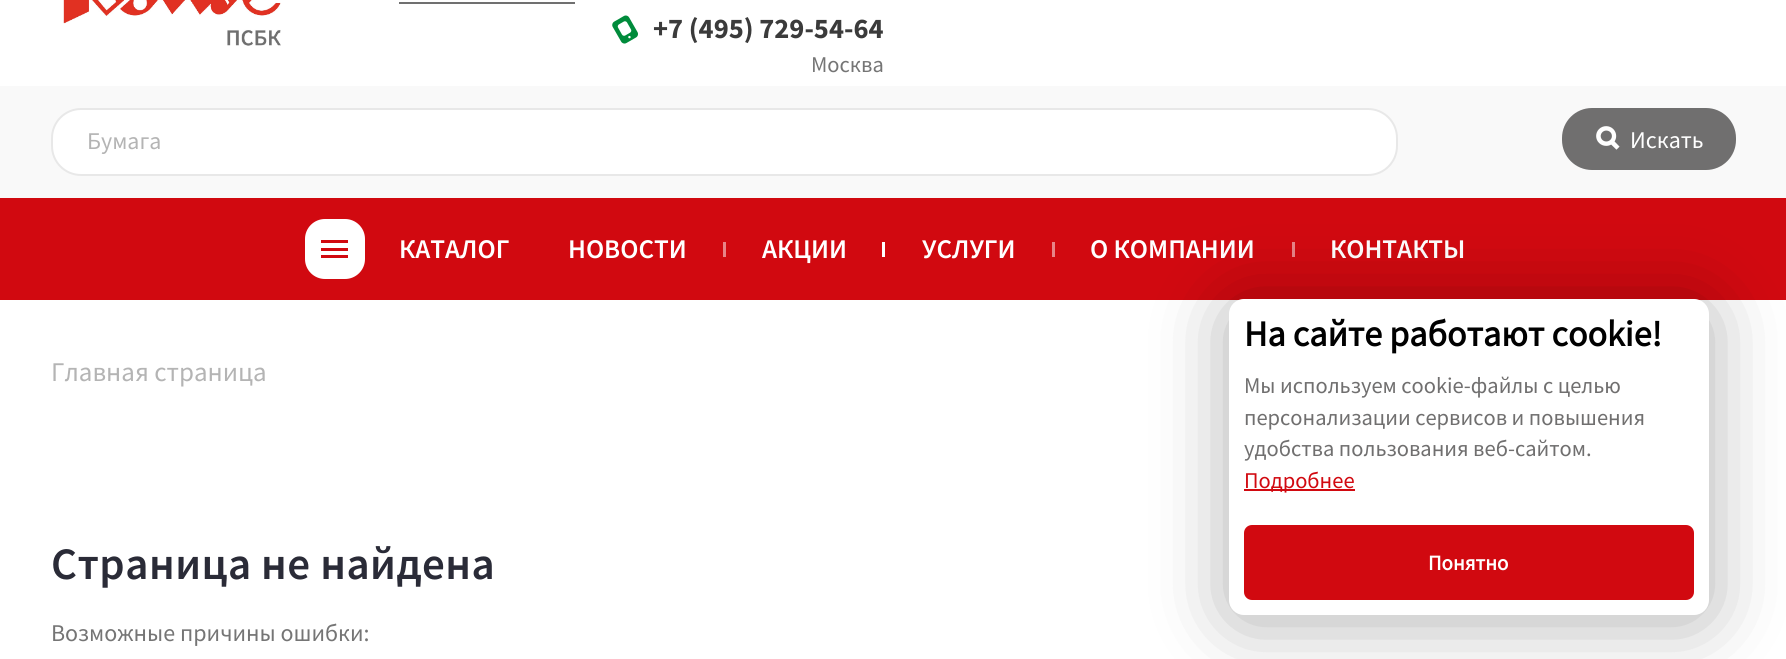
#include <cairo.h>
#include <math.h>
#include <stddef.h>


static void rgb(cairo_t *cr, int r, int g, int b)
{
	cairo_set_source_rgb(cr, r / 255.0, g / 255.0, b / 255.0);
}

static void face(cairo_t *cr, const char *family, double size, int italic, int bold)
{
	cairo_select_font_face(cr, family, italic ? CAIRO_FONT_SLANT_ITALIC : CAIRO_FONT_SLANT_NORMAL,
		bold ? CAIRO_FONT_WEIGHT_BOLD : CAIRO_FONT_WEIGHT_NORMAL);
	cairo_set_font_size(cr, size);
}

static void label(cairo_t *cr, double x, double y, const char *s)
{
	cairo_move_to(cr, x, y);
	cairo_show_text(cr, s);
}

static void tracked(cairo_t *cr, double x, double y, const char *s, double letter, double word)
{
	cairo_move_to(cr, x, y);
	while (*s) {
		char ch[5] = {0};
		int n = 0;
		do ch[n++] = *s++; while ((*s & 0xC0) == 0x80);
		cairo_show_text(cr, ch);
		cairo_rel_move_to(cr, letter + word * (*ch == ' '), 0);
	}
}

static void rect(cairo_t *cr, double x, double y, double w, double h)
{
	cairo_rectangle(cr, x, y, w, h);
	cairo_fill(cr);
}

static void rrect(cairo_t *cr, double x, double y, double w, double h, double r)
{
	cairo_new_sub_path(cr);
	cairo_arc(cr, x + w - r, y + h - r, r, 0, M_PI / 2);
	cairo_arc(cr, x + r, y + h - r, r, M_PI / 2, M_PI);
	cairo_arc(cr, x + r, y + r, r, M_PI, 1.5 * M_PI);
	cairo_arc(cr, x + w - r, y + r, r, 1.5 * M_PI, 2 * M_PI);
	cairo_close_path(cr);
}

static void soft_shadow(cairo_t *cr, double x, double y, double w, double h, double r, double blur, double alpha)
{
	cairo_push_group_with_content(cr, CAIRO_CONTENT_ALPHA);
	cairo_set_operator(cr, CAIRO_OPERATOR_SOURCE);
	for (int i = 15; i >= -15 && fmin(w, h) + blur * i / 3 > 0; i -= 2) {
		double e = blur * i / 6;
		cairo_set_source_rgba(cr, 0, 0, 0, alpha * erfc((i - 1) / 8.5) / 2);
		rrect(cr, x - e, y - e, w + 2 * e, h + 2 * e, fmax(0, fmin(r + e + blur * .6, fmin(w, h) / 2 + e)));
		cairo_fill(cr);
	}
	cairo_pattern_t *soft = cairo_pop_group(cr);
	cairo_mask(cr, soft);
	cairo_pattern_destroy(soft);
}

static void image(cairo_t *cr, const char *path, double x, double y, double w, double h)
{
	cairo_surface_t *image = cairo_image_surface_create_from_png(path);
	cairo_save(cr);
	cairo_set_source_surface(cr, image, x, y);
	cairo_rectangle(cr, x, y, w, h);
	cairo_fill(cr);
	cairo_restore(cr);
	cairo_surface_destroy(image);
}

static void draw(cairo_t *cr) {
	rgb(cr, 255, 255, 255);
	cairo_paint(cr);
	image(cr, "image0.png", 63, 0, 218, 46);
	rgb(cr, 112, 112, 112);
	rect(cr, 399, 2, 176, 2);
	image(cr, "image1.png", 612, 15, 26, 29);
	face(cr, "Source Sans Pro", 28.5, 0, 1);
	rgb(cr, 59, 59, 59);
	label(cr, 653, 38, "+7 (495) 729-54-64");
	face(cr, "Source Sans Pro", 22.5, 0, 0);
	rgb(cr, 117, 117, 117);
	label(cr, 811, 72, "Москва");
	rgb(cr, 249, 249, 249);
	rect(cr, 0, 86, 1786, 112);
	rgb(cr, 255, 255, 255);
	rrect(cr, 52, 109, 1345, 66, 29);
	cairo_fill_preserve(cr);
	rgb(cr, 232, 232, 232);
	cairo_stroke(cr);
	face(cr, "Source Sans Pro", 24, 0, 0);
	rgb(cr, 180, 180, 180);
	label(cr, 87, 149, "Бумага");
	rgb(cr, 112, 111, 111);
	rrect(cr, 1562, 108, 174, 62, 30);
	cairo_fill(cr);
	image(cr, "image2.png", 1596, 126, 24, 24);
	rgb(cr, 255, 255, 255);
	label(cr, 1630, 148, "Искать");
	rgb(cr, 209, 9, 16);
	rect(cr, 0, 198, 1786, 102);
	rgb(cr, 255, 255, 255);
	rrect(cr, 305, 219, 60, 60, 20);
	cairo_fill(cr);
	rgb(cr, 209, 9, 16);
	rect(cr, 321, 240, 27, 3);
	rect(cr, 321, 248, 27, 3);
	rect(cr, 321, 255, 27, 3);
	face(cr, "Source Sans Pro SemiBold", 27, 0, 0);
	rgb(cr, 255, 255, 255);
	label(cr, 399, 258, "КАТАЛОГ");
	label(cr, 568, 258, "НОВОСТИ");
	rgb(cr, 232, 132, 136);
	rect(cr, 723, 242, 3, 15);
	rgb(cr, 255, 255, 255);
	label(cr, 762, 258, "АКЦИИ");
	rect(cr, 882, 242, 3, 15);
	label(cr, 922, 258, "УСЛУГИ");
	rgb(cr, 232, 132, 136);
	rect(cr, 1052, 242, 3, 15);
	rgb(cr, 255, 255, 255);
	label(cr, 1090, 258, "О КОМПАНИИ");
	rgb(cr, 232, 132, 136);
	rect(cr, 1292, 242, 3, 15);
	rgb(cr, 255, 255, 255);
	label(cr, 1330, 258, "КОНТАКТЫ");
	face(cr, "Source Sans Pro", 27, 0, 0);
	rgb(cr, 180, 180, 180);
	label(cr, 51, 381, "Главная страница");
	face(cr, "Source Sans Pro SemiBold", 45, 0, 0);
	rgb(cr, 42, 43, 55);
	tracked(cr, 51, 579, "Страница не найдена", 0.5, 0);
	face(cr, "Source Sans Pro", 24, 0, 0);
	rgb(cr, 117, 117, 117);
	label(cr, 51, 641, "Возможные причины ошибки:");
	rgb(cr, 0, 0, 0);
	soft_shadow(cr, 1229, 305, 480, 316, 15, 37.5, 0.32);
	rgb(cr, 255, 255, 255);
	rrect(cr, 1229, 299, 480, 316, 15);
	cairo_fill(cr);
	face(cr, "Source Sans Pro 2", 36, 0, 1);
	rgb(cr, 0, 0, 0);
	label(cr, 1244, 346, "На сайте работают cookie!");
	face(cr, "Source Sans Pro", 22.5, 0, 0);
	rgb(cr, 112, 111, 111);
	label(cr, 1244, 393, "Мы используем cookie-файлы с целью");
	label(cr, 1244, 425, "персонализации сервисов и повышения");
	label(cr, 1244, 456, "удобства пользования веб-сайтом.");
	rgb(cr, 209, 9, 16);
	rect(cr, 1244, 489, 111, 2);
	label(cr, 1244, 488, "Подробнее");
	rrect(cr, 1244, 525, 450, 75, 8);
	cairo_fill(cr);
	face(cr, "Source Sans Pro 2", 21, 0, 1);
	rgb(cr, 255, 255, 255);
	label(cr, 1428, 570, "Понятно");
}

int main(void) {
	cairo_surface_t *surface = cairo_image_surface_create(CAIRO_FORMAT_RGB24, 1786, 659);
	cairo_t *cr = cairo_create(surface);
	cairo_font_options_t *options = cairo_font_options_create();
	cairo_font_options_set_hint_metrics(options, CAIRO_HINT_METRICS_OFF);
	cairo_font_options_set_hint_style(options, CAIRO_HINT_STYLE_NONE);
	cairo_set_font_options(cr, options);
	cairo_set_miter_limit(cr, 4);
	draw(cr);
	cairo_surface_write_to_png(surface, "render.png");
	cairo_font_options_destroy(options);
	cairo_destroy(cr);
	cairo_surface_destroy(surface);
	return 0;
}
